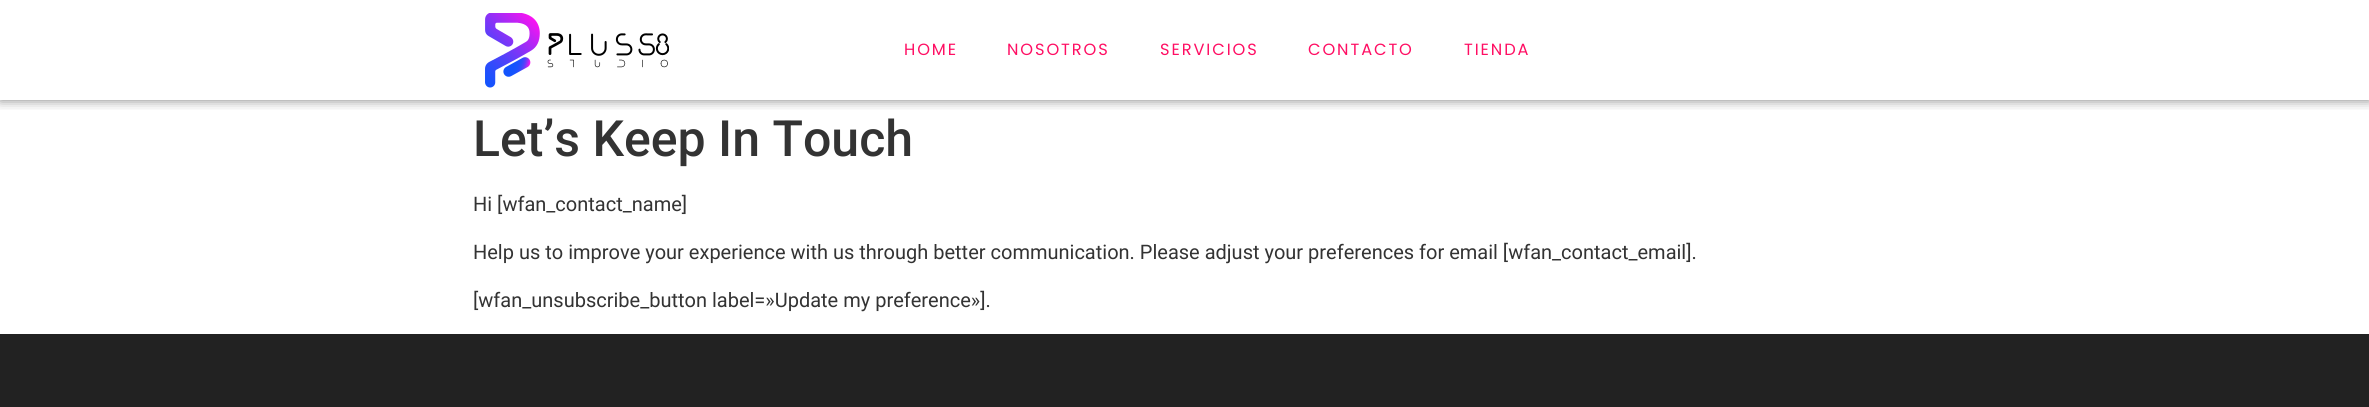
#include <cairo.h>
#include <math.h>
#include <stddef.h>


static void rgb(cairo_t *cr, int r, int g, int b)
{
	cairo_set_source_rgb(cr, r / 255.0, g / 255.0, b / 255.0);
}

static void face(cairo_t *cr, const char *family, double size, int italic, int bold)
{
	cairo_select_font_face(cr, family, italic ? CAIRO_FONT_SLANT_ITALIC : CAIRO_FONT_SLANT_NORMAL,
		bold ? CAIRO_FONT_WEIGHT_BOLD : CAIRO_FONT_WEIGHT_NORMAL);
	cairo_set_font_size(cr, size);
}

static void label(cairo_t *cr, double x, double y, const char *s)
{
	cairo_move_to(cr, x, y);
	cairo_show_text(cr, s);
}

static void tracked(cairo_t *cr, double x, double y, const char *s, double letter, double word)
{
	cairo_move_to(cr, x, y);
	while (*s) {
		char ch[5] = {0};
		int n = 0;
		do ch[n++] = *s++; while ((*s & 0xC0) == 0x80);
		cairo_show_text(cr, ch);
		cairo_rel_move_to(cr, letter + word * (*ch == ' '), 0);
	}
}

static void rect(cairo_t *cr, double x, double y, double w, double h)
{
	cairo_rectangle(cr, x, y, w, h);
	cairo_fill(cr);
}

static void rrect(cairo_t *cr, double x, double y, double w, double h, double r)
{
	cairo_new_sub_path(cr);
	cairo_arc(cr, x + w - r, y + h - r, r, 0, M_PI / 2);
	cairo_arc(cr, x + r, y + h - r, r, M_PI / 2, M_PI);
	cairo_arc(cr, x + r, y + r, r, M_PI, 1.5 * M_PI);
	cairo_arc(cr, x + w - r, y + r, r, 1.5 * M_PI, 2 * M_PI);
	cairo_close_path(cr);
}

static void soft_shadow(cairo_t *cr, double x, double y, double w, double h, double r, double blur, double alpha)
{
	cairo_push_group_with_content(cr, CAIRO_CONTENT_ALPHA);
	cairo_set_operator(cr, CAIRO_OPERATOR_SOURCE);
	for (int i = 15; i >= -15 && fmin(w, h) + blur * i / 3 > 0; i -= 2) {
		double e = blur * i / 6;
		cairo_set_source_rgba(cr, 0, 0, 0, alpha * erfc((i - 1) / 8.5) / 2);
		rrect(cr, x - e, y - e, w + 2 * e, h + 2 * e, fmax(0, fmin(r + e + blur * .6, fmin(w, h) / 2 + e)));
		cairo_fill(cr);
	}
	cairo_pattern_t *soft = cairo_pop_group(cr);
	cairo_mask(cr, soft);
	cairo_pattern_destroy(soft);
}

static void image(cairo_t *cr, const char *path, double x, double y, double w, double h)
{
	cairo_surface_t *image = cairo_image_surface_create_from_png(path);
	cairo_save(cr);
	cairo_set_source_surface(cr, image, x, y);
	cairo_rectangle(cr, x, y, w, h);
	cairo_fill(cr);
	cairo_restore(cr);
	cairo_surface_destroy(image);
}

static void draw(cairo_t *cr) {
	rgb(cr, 255, 255, 255);
	cairo_paint(cr);
	cairo_save(cr);
	cairo_rectangle(cr, 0, 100, 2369, 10);
	cairo_clip(cr);
	rgb(cr, 0, 0, 0);
	soft_shadow(cr, 0, 0, 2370, 100, 0, 6, 0.5);
	cairo_restore(cr);
	image(cr, "image0.png", 485, 13, 184, 75);
	face(cr, "Poppins", 16.25, 0, 0);
	rgb(cr, 255, 14, 99);
	tracked(cr, 904, 55, "HOME", 1.9, 0);
	tracked(cr, 1007, 55, "NOSOTROS", 1.9, 0);
	tracked(cr, 1160, 55, "SERVICIOS", 1.9, 0);
	tracked(cr, 1308, 55, "CONTACTO", 1.9, 0);
	tracked(cr, 1464, 55, "TIENDA", 1.9, 0);
	face(cr, "Roboto Medium", 50, 0, 0);
	rgb(cr, 51, 51, 51);
	label(cr, 473, 156, "Let’s Keep In Touch");
	face(cr, "Roboto", 20, 0, 0);
	label(cr, 473, 211, "Hi [wfan_contact_name]");
	label(cr, 473, 259, "Help us to improve your experience with us through better communication. Please adjust your preferences for email [wfan_contact_email].");
	label(cr, 473, 307, "[wfan_unsubscribe_button label=»Update my preference»].");
	rgb(cr, 34, 34, 34);
	rect(cr, 0, 334, 2369, 73);
}

int main(void) {
	cairo_surface_t *surface = cairo_image_surface_create(CAIRO_FORMAT_RGB24, 2369, 407);
	cairo_t *cr = cairo_create(surface);
	cairo_font_options_t *options = cairo_font_options_create();
	cairo_font_options_set_hint_metrics(options, CAIRO_HINT_METRICS_OFF);
	cairo_font_options_set_hint_style(options, CAIRO_HINT_STYLE_NONE);
	cairo_set_font_options(cr, options);
	cairo_set_miter_limit(cr, 4);
	draw(cr);
	cairo_surface_write_to_png(surface, "render.png");
	cairo_font_options_destroy(options);
	cairo_destroy(cr);
	cairo_surface_destroy(surface);
	return 0;
}
